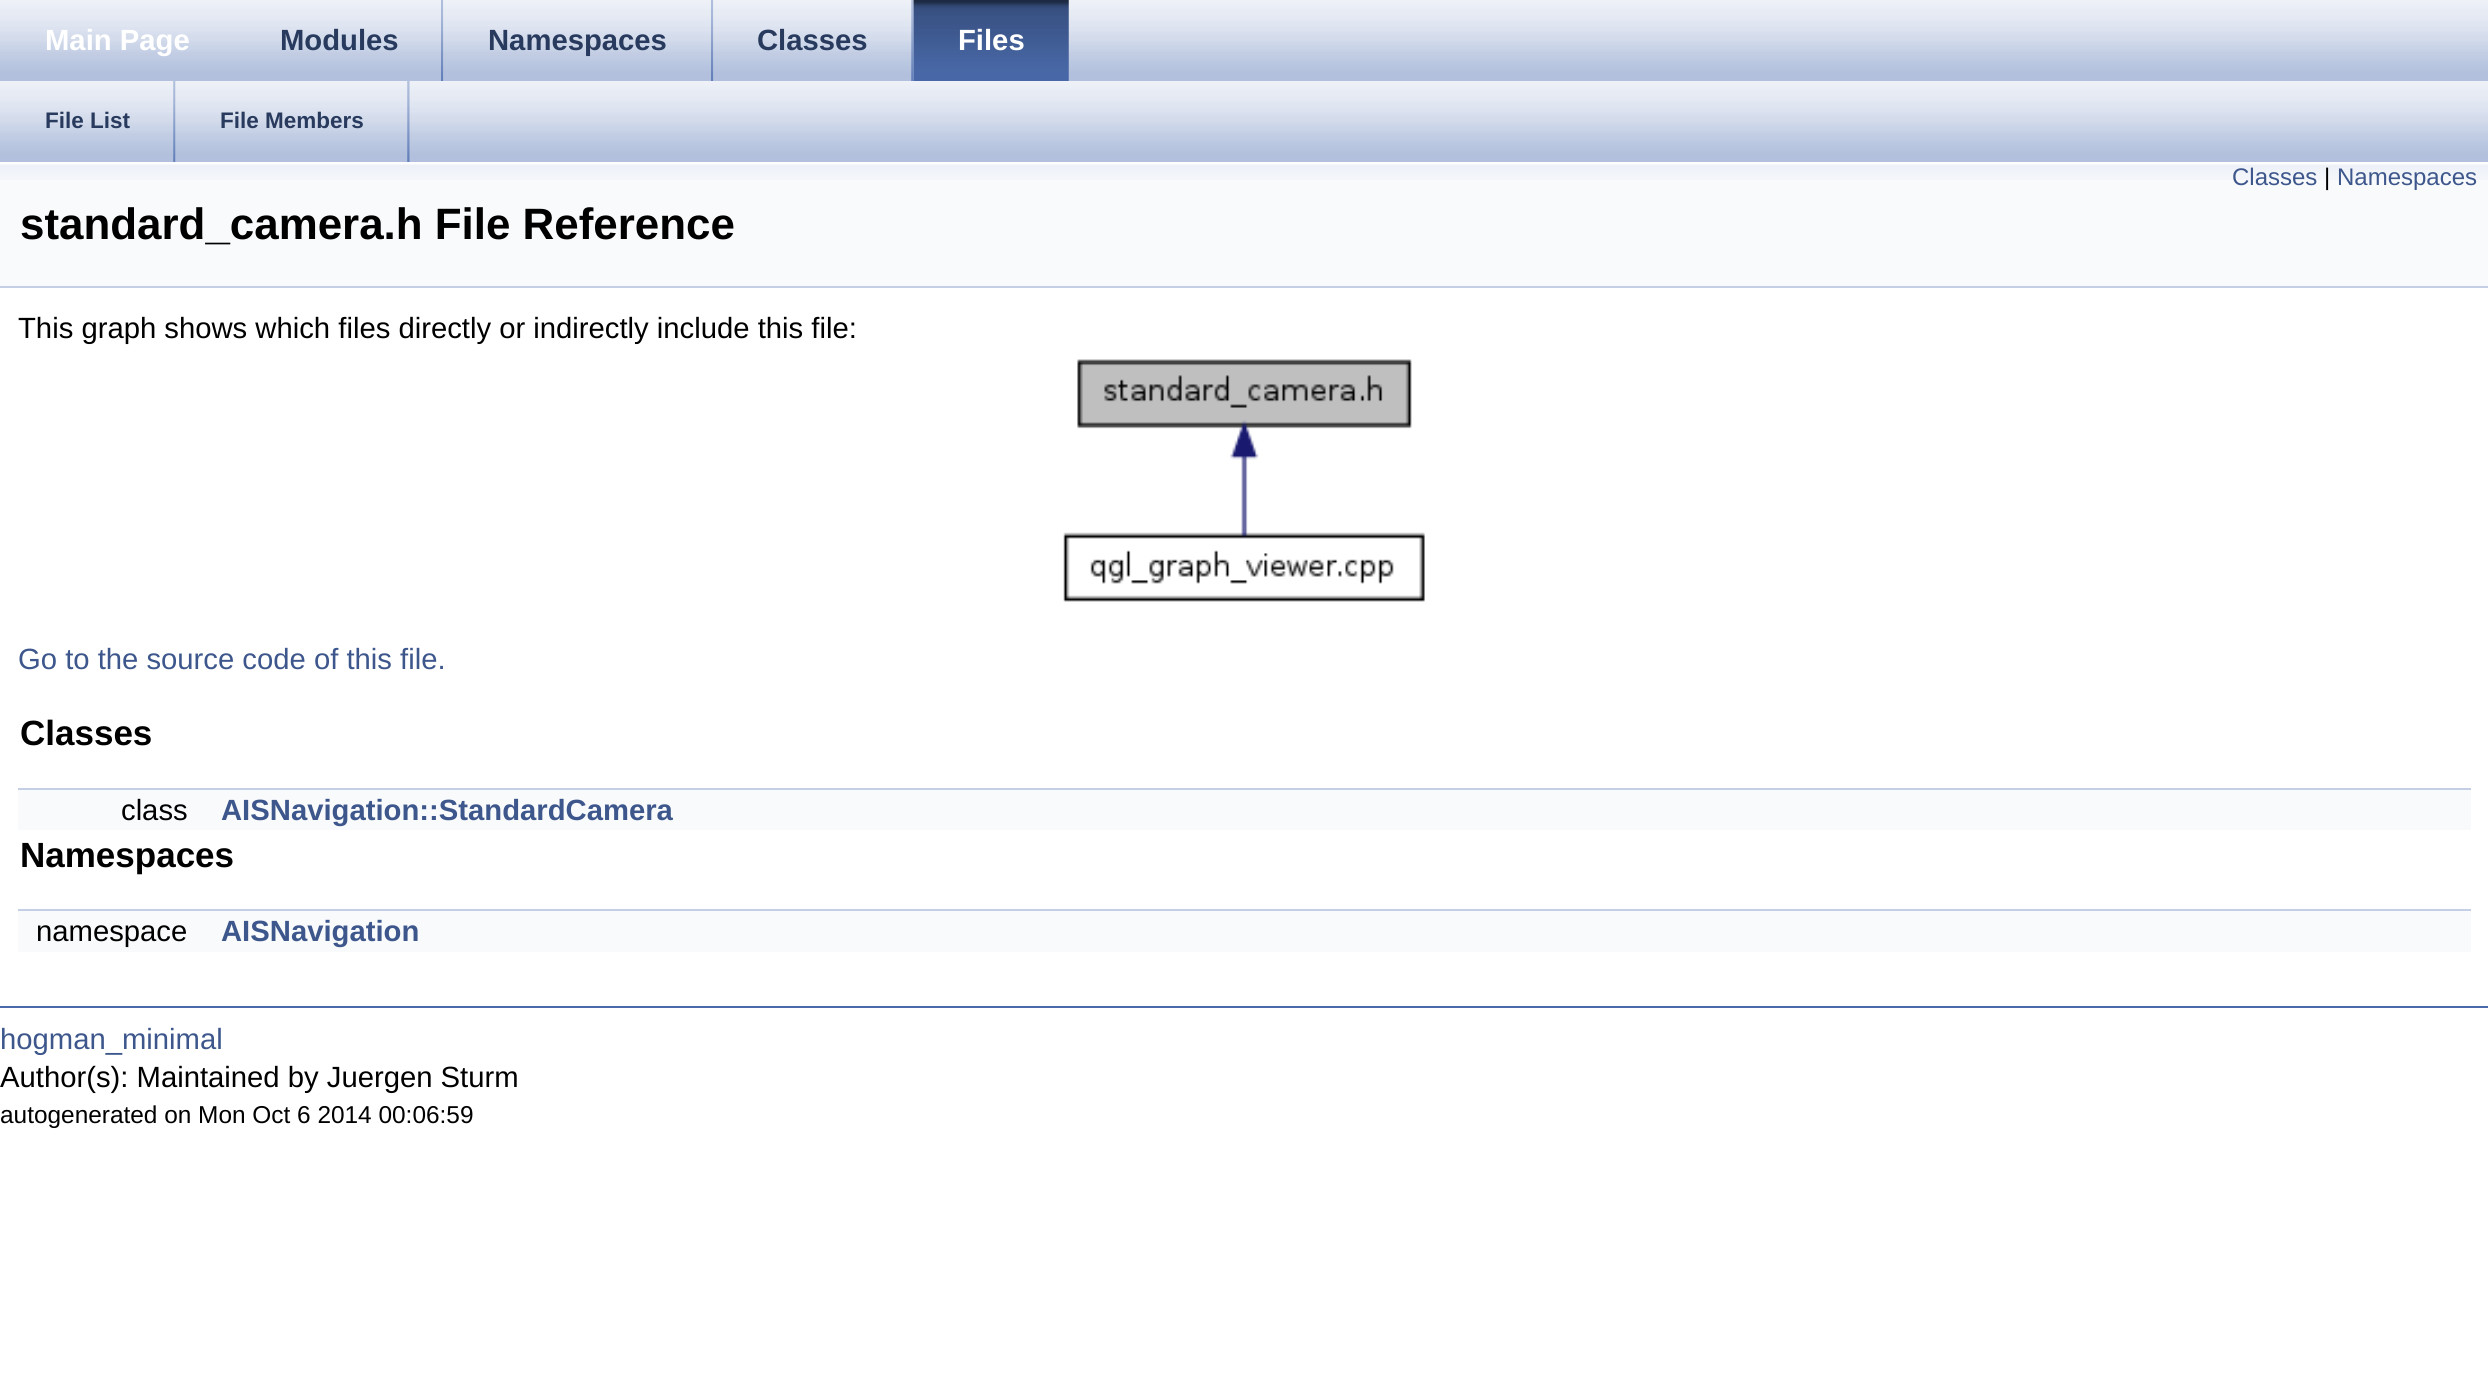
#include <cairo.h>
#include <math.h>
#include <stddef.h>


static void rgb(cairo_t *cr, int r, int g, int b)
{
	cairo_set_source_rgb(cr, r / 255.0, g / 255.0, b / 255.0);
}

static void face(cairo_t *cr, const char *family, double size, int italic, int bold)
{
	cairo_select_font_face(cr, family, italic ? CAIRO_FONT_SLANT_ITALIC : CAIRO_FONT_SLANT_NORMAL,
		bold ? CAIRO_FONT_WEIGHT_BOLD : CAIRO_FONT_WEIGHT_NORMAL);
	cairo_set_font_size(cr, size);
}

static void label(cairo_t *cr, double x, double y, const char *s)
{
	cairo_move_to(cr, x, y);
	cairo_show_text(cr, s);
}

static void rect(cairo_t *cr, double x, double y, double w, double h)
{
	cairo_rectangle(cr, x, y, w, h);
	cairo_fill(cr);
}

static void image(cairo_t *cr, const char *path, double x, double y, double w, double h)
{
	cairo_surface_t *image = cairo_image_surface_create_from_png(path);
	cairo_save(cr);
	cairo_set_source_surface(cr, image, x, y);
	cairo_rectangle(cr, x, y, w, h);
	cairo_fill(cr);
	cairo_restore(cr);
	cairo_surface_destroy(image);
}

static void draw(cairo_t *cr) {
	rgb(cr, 255, 255, 255);
	cairo_paint(cr);
	image(cr, "image0.png", 0, 0, 2488, 81);
	face(cr, "Liberation Sans", 29.25, 0, 1);
	rgb(cr, 255, 255, 255);
	label(cr, 45, 50, "Main Page");
	image(cr, "image1.png", 441, 0, 3, 81);
	rgb(cr, 40, 58, 93);
	label(cr, 280, 50, "Modules");
	image(cr, "image2.png", 443, 0, 1, 81);
	image(cr, "image1.png", 711, 0, 3, 81);
	label(cr, 488, 50, "Namespaces");
	image(cr, "image2.png", 713, 0, 1, 81);
	image(cr, "image3.png", 911, 0, 3, 81);
	label(cr, 757, 50, "Classes");
	image(cr, "image4.png", 913, 0, 1, 81);
	image(cr, "image5.png", 913, 0, 156, 81);
	rgb(cr, 255, 255, 255);
	label(cr, 958, 50, "Files");
	image(cr, "image0.png", 0, 81, 2488, 81);
	image(cr, "image3.png", 173, 81, 3, 81);
	face(cr, "Liberation Sans", 22.5, 0, 1);
	rgb(cr, 40, 58, 93);
	label(cr, 45, 128, "File List");
	image(cr, "image4.png", 175, 81, 1, 81);
	image(cr, "image3.png", 407, 81, 3, 81);
	label(cr, 220, 128, "File Members");
	rgb(cr, 249, 250, 252);
	rect(cr, 0, 180, 2488, 106);
	image(cr, "image6.png", 0, 162, 2488, 18);
	rgb(cr, 196, 207, 229);
	rect(cr, 0, 286, 2488, 2);
	face(cr, "Liberation Sans", 24, 0, 0);
	rgb(cr, 61, 87, 140);
	label(cr, 2232, 185, "Classes");
	rgb(cr, 0, 0, 0);
	label(cr, 2324, 185, "|");
	rgb(cr, 61, 87, 140);
	label(cr, 2337, 185, "Namespaces");
	face(cr, "Liberation Sans", 43.9, 0, 1);
	rgb(cr, 0, 0, 0);
	label(cr, 20, 239, "standard_camera.h File Reference");
	face(cr, "Liberation Sans", 29.25, 0, 0);
	label(cr, 18, 338, "This graph shows which files directly or indirectly include this file:");
	image(cr, "image7.png", 1063, 359, 362, 243);
	rgb(cr, 61, 87, 140);
	label(cr, 18, 669, "Go to the source code of this file.");
	face(cr, "Liberation Sans", 35, 0, 1);
	rgb(cr, 0, 0, 0);
	label(cr, 20, 745, "Classes");
	rgb(cr, 249, 250, 252);
	rect(cr, 18, 790, 2453, 40);
	rgb(cr, 196, 207, 229);
	rect(cr, 18, 788, 2453, 2);
	face(cr, "Liberation Sans", 29.25, 0, 0);
	rgb(cr, 0, 0, 0);
	label(cr, 121, 820, "class");
	face(cr, "Liberation Sans", 29.25, 0, 1);
	rgb(cr, 61, 87, 140);
	label(cr, 221, 820, "AISNavigation::StandardCamera");
	face(cr, "Liberation Sans", 35, 0, 1);
	rgb(cr, 0, 0, 0);
	label(cr, 20, 867, "Namespaces");
	rgb(cr, 249, 250, 252);
	rect(cr, 18, 911, 2453, 41);
	rgb(cr, 196, 207, 229);
	rect(cr, 18, 909, 2453, 2);
	face(cr, "Liberation Sans", 29.25, 0, 0);
	rgb(cr, 0, 0, 0);
	label(cr, 36, 941, "namespace");
	face(cr, "Liberation Sans", 29.25, 0, 1);
	rgb(cr, 61, 87, 140);
	label(cr, 221, 941, "AISNavigation");
	rgb(cr, 74, 106, 170);
	rect(cr, 0, 1006, 2488, 2);
	face(cr, "Liberation Sans", 29.25, 0, 0);
	rgb(cr, 61, 87, 140);
	label(cr, 0, 1049, "hogman_minimal");
	rgb(cr, 0, 0, 0);
	label(cr, 0, 1087, "Author(s): Maintained by Juergen Sturm");
	face(cr, "Liberation Sans", 24.4, 0, 0);
	label(cr, 0, 1123, "autogenerated on Mon Oct 6 2014 00:06:59");
}

int main(void) {
	cairo_surface_t *surface = cairo_image_surface_create(CAIRO_FORMAT_RGB24, 2488, 1378);
	cairo_t *cr = cairo_create(surface);
	cairo_font_options_t *options = cairo_font_options_create();
	cairo_font_options_set_hint_metrics(options, CAIRO_HINT_METRICS_OFF);
	cairo_font_options_set_hint_style(options, CAIRO_HINT_STYLE_NONE);
	cairo_set_font_options(cr, options);
	cairo_set_miter_limit(cr, 4);
	draw(cr);
	cairo_surface_write_to_png(surface, "render.png");
	cairo_font_options_destroy(options);
	cairo_destroy(cr);
	cairo_surface_destroy(surface);
	return 0;
}
